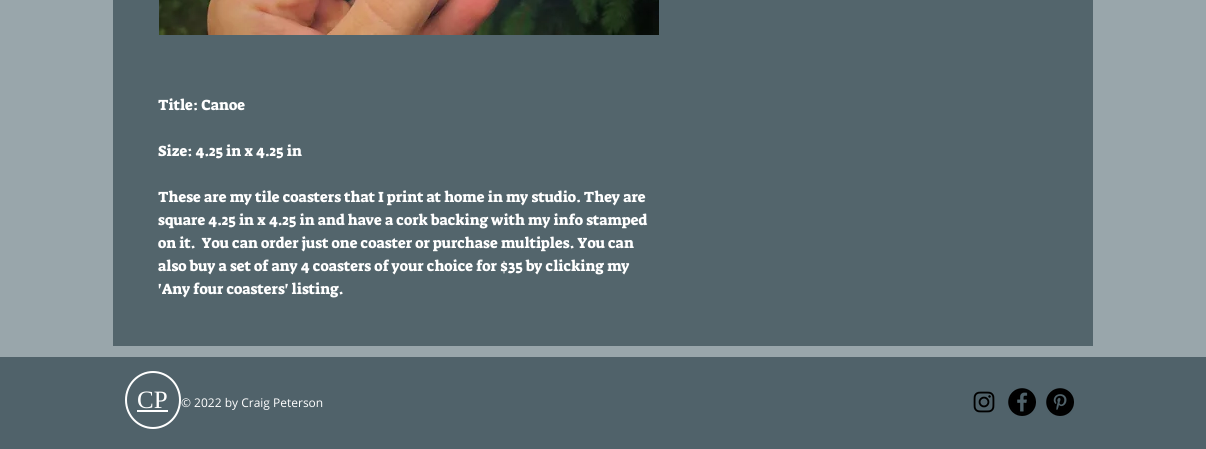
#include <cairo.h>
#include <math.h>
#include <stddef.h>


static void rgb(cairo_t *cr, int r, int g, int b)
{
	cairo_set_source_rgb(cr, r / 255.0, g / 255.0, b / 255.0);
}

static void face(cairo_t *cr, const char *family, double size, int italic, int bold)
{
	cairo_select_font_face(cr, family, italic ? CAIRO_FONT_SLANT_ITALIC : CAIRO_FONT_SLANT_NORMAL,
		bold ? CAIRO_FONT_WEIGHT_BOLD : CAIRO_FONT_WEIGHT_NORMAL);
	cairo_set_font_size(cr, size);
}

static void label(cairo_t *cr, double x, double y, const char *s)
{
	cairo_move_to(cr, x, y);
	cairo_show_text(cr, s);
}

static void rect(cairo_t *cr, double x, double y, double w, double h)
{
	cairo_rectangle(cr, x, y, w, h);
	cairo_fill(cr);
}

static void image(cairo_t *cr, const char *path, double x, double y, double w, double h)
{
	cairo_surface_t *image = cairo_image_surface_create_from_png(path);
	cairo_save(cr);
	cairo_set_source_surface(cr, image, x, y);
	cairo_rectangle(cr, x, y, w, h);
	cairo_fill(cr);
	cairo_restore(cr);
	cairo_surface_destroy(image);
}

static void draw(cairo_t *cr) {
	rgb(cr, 153, 166, 171);
	cairo_paint(cr);
	rgb(cr, 83, 101, 108);
	rect(cr, 113, 0, 980, 346);
	image(cr, "image0.png", 159, 0, 500, 35);
	face(cr, "Suez One", 15, 0, 0);
	rgb(cr, 255, 255, 255);
	label(cr, 158, 110, "Title: Canoe");
	label(cr, 158, 156, "Size: 4.25 in x 4.25 in");
	label(cr, 158, 202, "These are my tile coasters that I print at home in my studio. They are");
	label(cr, 158, 225, "square 4.25 in x 4.25 in and have a cork backing with my info stamped");
	label(cr, 158, 248, "on it.  You can order just one coaster or purchase multiples. You can");
	label(cr, 158, 271, "also buy a set of any 4 coasters of your choice for $35 by clicking my");
	label(cr, 158, 294, "'Any four coasters' listing.");
	rgb(cr, 80, 98, 106);
	rect(cr, 0, 357, 1206, 92);
	cairo_new_path(cr);
	cairo_move_to(cr, 153, 372);
	cairo_curve_to(cr, 168, 372, 180, 384.5, 180, 400);
	cairo_curve_to(cr, 180, 415.5, 168, 428, 153, 428);
	cairo_curve_to(cr, 138, 428, 126, 415.5, 126, 400);
	cairo_curve_to(cr, 126, 384.5, 138, 372, 153, 372);
	cairo_close_path(cr);
	rgb(cr, 255, 255, 255);
	cairo_stroke(cr);
	face(cr, "Liberation Serif", 25, 0, 0);
	label(cr, 137, 408, "CP");
	rect(cr, 137, 410, 31, 2);
	face(cr, "Open Sans", 12, 0, 0);
	label(cr, 181, 407, "© 2022 by Craig Peterson");
	image(cr, "image1.png", 973, 391, 22, 22);
	image(cr, "image2.png", 1008, 388, 28, 28);
	image(cr, "image3.png", 1046, 388, 28, 28);
}

int main(void) {
	cairo_surface_t *surface = cairo_image_surface_create(CAIRO_FORMAT_RGB24, 1206, 449);
	cairo_t *cr = cairo_create(surface);
	cairo_font_options_t *options = cairo_font_options_create();
	cairo_font_options_set_hint_metrics(options, CAIRO_HINT_METRICS_OFF);
	cairo_font_options_set_hint_style(options, CAIRO_HINT_STYLE_NONE);
	cairo_set_font_options(cr, options);
	cairo_set_miter_limit(cr, 4);
	draw(cr);
	cairo_surface_write_to_png(surface, "render.png");
	cairo_font_options_destroy(options);
	cairo_destroy(cr);
	cairo_surface_destroy(surface);
	return 0;
}
